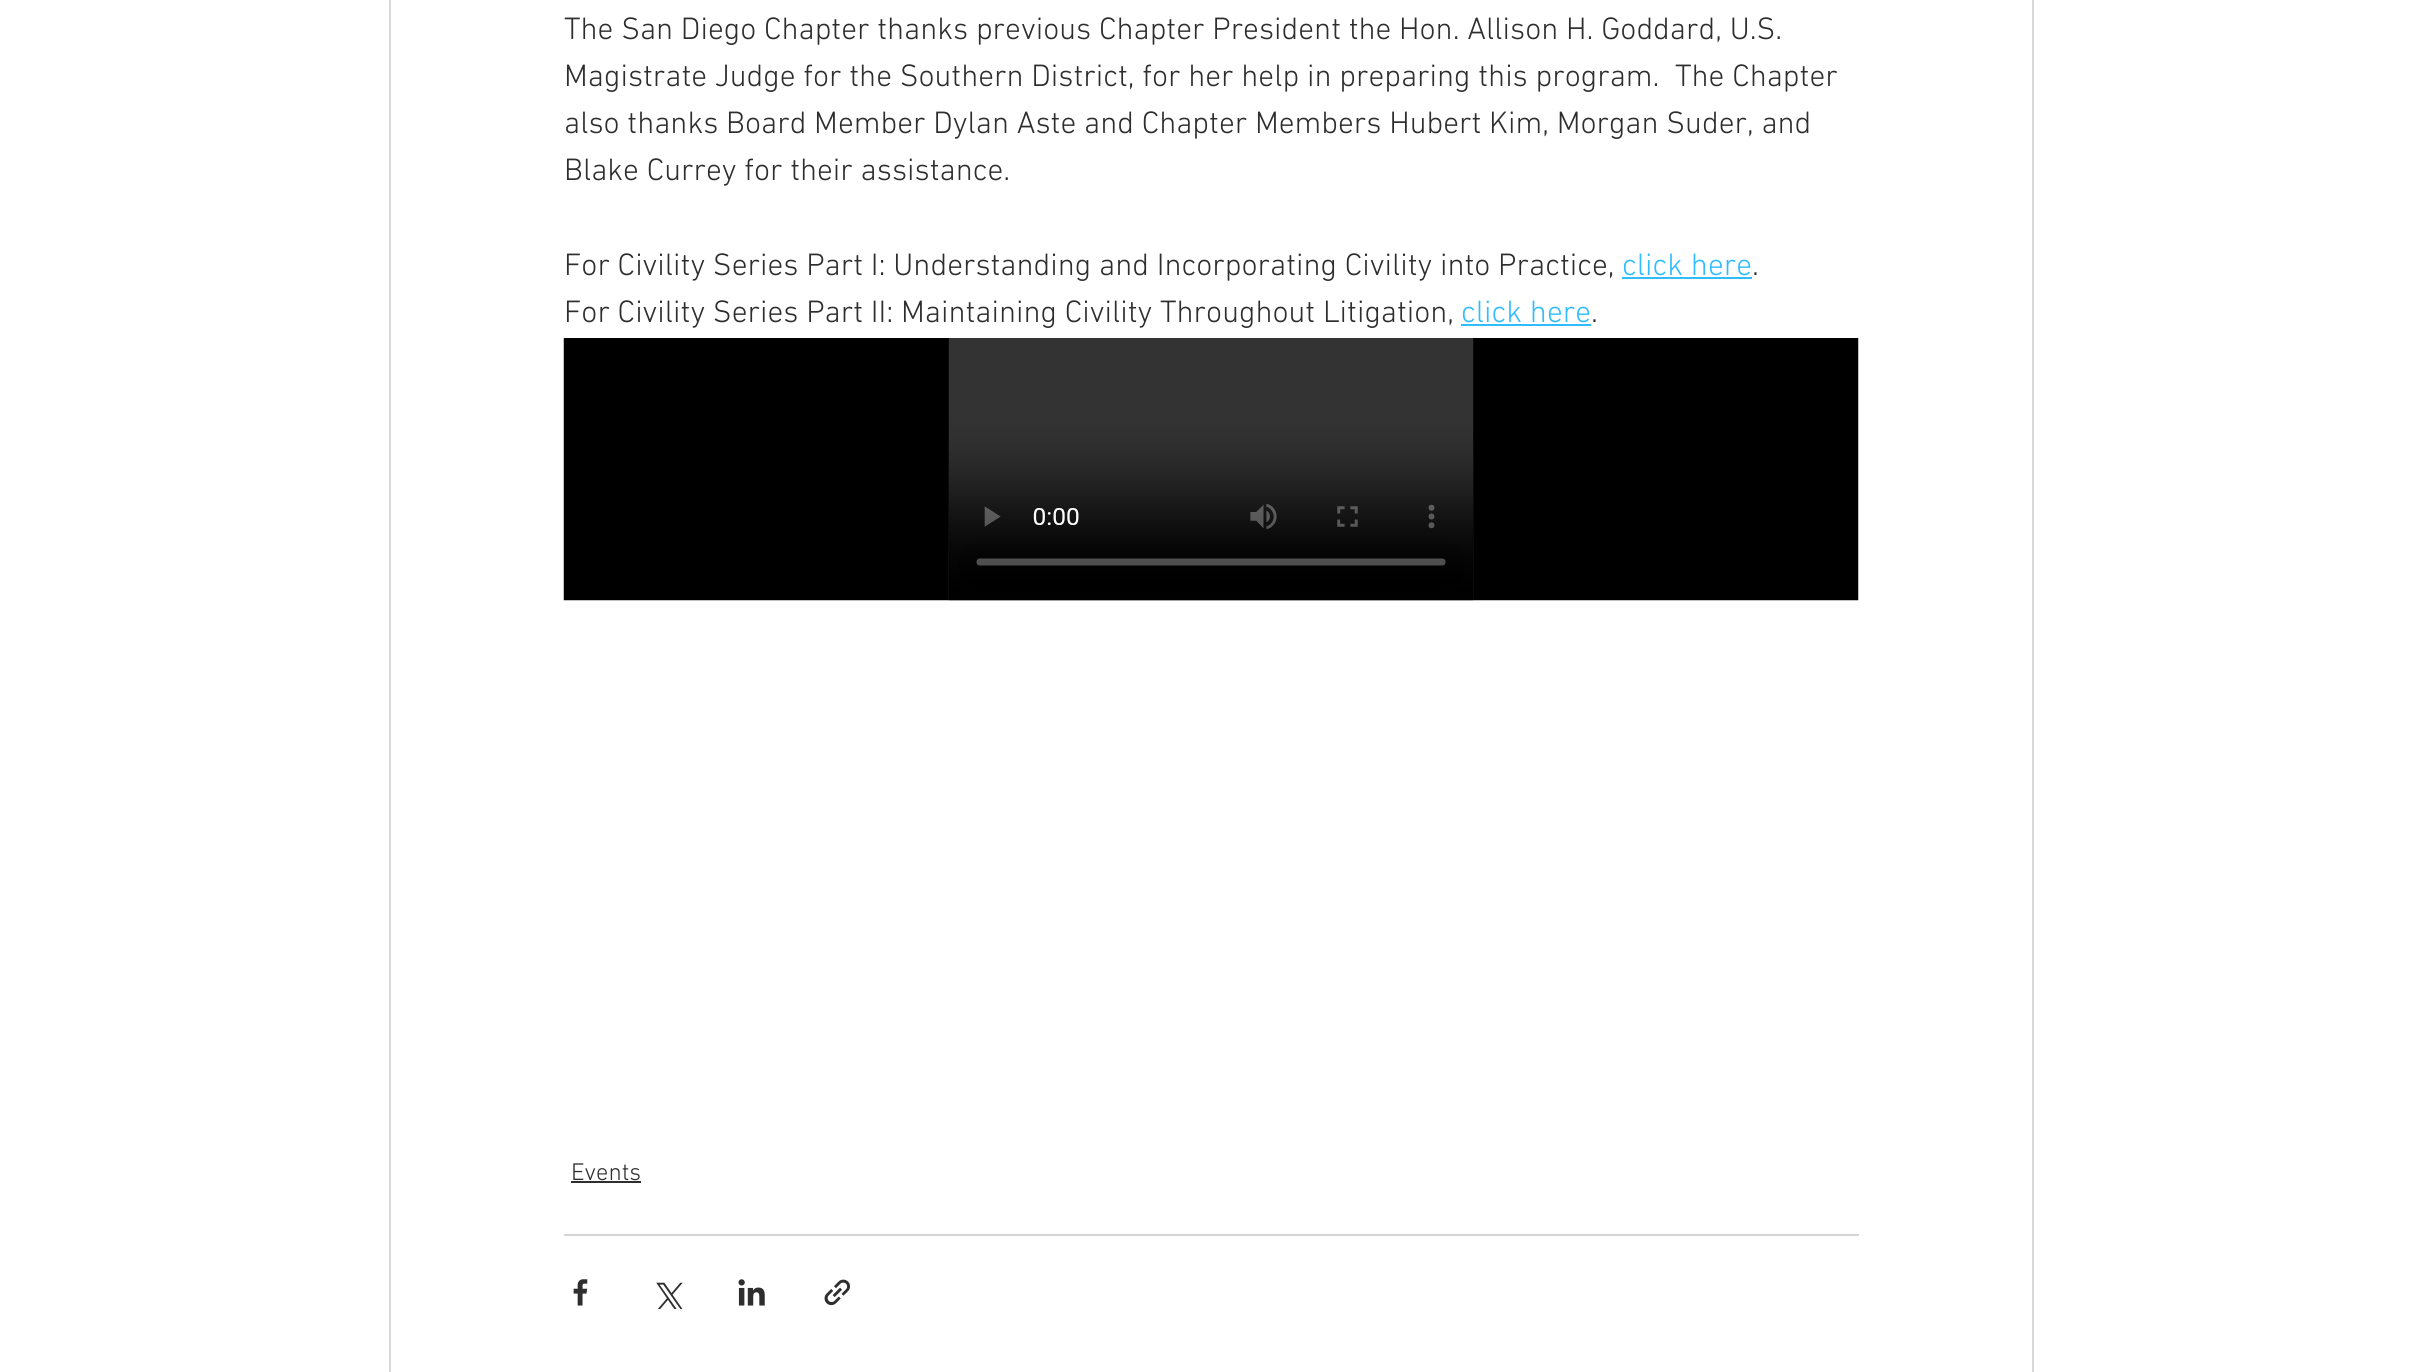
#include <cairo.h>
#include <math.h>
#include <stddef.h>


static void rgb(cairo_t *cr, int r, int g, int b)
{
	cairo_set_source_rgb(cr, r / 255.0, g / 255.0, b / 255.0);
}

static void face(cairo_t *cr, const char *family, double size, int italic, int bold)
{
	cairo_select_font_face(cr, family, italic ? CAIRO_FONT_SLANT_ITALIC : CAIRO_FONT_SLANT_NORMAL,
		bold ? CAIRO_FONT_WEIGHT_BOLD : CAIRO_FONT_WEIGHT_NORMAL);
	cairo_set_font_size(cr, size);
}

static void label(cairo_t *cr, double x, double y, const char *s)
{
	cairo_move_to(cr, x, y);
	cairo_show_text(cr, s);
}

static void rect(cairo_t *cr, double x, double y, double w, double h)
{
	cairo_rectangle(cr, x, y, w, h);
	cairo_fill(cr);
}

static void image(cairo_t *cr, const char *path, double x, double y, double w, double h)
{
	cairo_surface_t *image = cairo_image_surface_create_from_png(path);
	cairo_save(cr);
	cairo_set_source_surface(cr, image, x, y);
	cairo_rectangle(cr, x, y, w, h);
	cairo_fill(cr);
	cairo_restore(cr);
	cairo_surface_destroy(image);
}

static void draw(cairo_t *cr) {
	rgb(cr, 255, 255, 255);
	cairo_paint(cr);
	cairo_rectangle(cr, 390, -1, 1643, 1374);
	rgb(cr, 217, 217, 217);
	cairo_stroke(cr);
	face(cr, "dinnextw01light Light", 31.5, 0, 0);
	rgb(cr, 47, 46, 46);
	label(cr, 564, 39, "The San Diego Chapter thanks previous Chapter President the Hon. Allison H. Goddard, U.S.");
	label(cr, 564, 86, "Magistrate Judge for the Southern District, for her help in preparing this program.  The Chapter");
	label(cr, 564, 133, "also thanks Board Member Dylan Aste and Chapter Members Hubert Kim, Morgan Suder, and");
	label(cr, 564, 180, "Blake Currey for their assistance.");
	label(cr, 564, 275, "For Civility Series Part I: Understanding and Incorporating Civility into Practice,");
	rgb(cr, 48, 189, 255);
	label(cr, 1622, 275, "click here");
	rect(cr, 1622, 277, 130, 2);
	rgb(cr, 47, 46, 46);
	label(cr, 1752, 275, ".");
	label(cr, 564, 322, "For Civility Series Part II: Maintaining Civility Throughout Litigation,");
	rgb(cr, 48, 189, 255);
	label(cr, 1461, 322, "click here");
	rect(cr, 1461, 324, 130, 2);
	rgb(cr, 47, 46, 46);
	label(cr, 1591, 322, ".");
	image(cr, "image0.png", 563, 338, 1296, 263);
	face(cr, "dinnextw01light Light", 24.5, 0, 0);
	label(cr, 571, 1180, "Events");
	rect(cr, 571, 1181, 70, 2);
	rgb(cr, 213, 213, 213);
	rect(cr, 564, 1234, 1295, 2);
	image(cr, "image1.png", 573, 1279, 15, 27);
	image(cr, "image2.png", 656, 1282, 27, 27);
	image(cr, "image3.png", 738, 1279, 27, 27);
	image(cr, "image4.png", 824, 1279, 27, 27);
}

int main(void) {
	cairo_surface_t *surface = cairo_image_surface_create(CAIRO_FORMAT_RGB24, 2421, 1372);
	cairo_t *cr = cairo_create(surface);
	cairo_font_options_t *options = cairo_font_options_create();
	cairo_font_options_set_hint_metrics(options, CAIRO_HINT_METRICS_OFF);
	cairo_font_options_set_hint_style(options, CAIRO_HINT_STYLE_NONE);
	cairo_set_font_options(cr, options);
	cairo_set_miter_limit(cr, 4);
	draw(cr);
	cairo_surface_write_to_png(surface, "render.png");
	cairo_font_options_destroy(options);
	cairo_destroy(cr);
	cairo_surface_destroy(surface);
	return 0;
}
